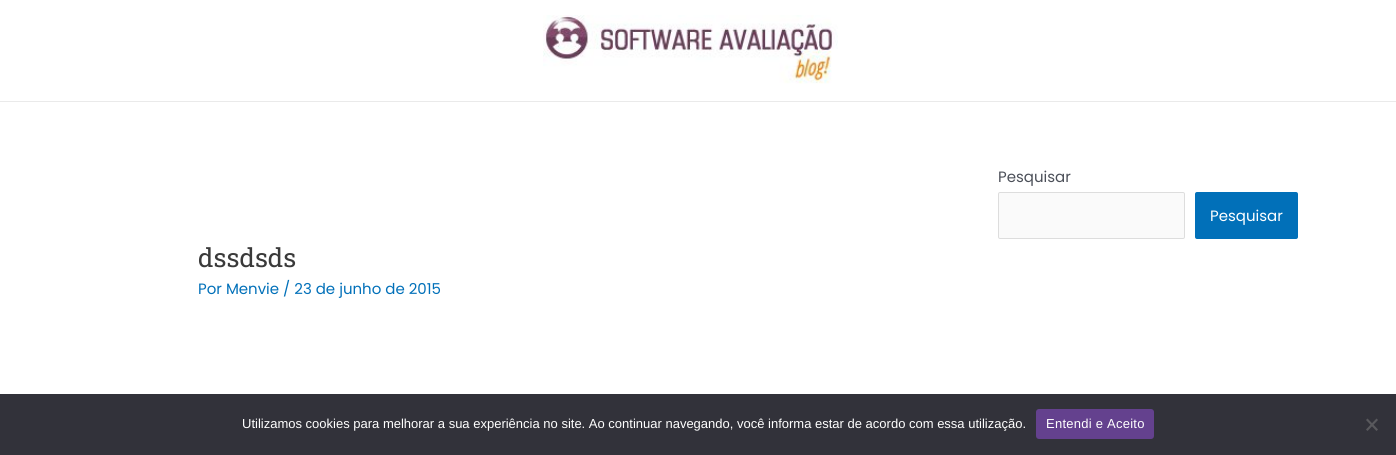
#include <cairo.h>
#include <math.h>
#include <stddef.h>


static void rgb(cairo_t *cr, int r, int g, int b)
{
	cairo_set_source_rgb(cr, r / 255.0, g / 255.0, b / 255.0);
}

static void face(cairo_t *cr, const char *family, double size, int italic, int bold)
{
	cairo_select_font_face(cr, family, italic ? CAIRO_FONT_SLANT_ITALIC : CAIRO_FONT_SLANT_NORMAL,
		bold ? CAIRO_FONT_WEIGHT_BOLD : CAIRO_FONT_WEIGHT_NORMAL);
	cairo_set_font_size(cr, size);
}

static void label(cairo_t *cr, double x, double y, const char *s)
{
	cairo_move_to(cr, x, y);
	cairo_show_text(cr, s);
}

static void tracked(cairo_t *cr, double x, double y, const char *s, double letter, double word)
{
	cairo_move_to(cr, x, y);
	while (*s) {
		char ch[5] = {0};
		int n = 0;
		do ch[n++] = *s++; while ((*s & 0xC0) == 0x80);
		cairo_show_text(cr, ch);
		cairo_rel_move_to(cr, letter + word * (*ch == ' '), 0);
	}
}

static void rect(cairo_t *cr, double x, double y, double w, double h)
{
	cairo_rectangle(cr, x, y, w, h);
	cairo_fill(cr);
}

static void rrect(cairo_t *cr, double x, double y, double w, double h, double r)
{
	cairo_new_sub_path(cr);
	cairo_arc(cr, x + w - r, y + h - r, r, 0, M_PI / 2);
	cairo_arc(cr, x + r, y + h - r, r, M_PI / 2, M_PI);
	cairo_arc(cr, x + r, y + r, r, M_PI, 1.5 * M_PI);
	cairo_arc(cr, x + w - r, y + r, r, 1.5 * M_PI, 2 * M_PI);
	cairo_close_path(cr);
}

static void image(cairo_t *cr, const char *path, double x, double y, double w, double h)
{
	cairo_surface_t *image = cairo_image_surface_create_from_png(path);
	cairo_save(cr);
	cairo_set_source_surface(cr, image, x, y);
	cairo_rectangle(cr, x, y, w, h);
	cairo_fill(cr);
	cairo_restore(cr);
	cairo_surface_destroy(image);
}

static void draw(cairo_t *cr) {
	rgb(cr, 255, 255, 255);
	cairo_paint(cr);
	rgb(cr, 234, 234, 234);
	rect(cr, 0, 101, 1396, 1);
	image(cr, "image0.png", 543, 15, 295, 69);
	face(cr, "Poppins", 15, 0, 0);
	rgb(cr, 75, 79, 88);
	label(cr, 998, 182, "Pesquisar");
	rgb(cr, 250, 250, 250);
	rrect(cr, 998.5, 192.5, 186, 46, 1.5);
	cairo_fill_preserve(cr);
	rgb(cr, 221, 221, 221);
	cairo_set_line_width(cr, 1);
	cairo_stroke(cr);
	rgb(cr, 1, 112, 185);
	rrect(cr, 1195, 192, 103, 47, 2);
	cairo_fill(cr);
	rgb(cr, 255, 255, 255);
	label(cr, 1210, 221, "Pesquisar");
	face(cr, "Roboto Slab", 26, 0, 0);
	rgb(cr, 58, 58, 58);
	label(cr, 198, 267, "dssdsds");
	face(cr, "Poppins", 15, 0, 0);
	rgb(cr, 1, 112, 185);
	label(cr, 198, 294, "Por Menvie / 23 de junho de 2015");
	rgb(cr, 50, 50, 58);
	rect(cr, 0, 394, 1396, 61);
	face(cr, "Liberation Sans", 13, 0, 0);
	rgb(cr, 255, 255, 255);
	label(cr, 242, 428, "Utilizamos cookies para melhorar a sua experiência no site. Ao continuar navegando, você informa estar de acordo com essa utilização.");
	rgb(cr, 100, 65, 142);
	rrect(cr, 1036, 409, 118, 30, 3);
	cairo_fill(cr);
	rgb(cr, 255, 255, 255);
	tracked(cr, 1046, 428, "Entendi e Aceito", 0.25, 0);
	rgb(cr, 89, 89, 93);
	cairo_new_path(cr);
	cairo_move_to(cr, 1376.5, 418.5);
	cairo_line_to(cr, 1378, 420);
	cairo_line_to(cr, 1367.5, 431);
	cairo_line_to(cr, 1366, 429.5);
	cairo_close_path(cr);
	cairo_fill(cr);
	cairo_new_path(cr);
	cairo_move_to(cr, 1366, 420);
	cairo_line_to(cr, 1367.5, 418.5);
	cairo_line_to(cr, 1378, 429.5);
	cairo_line_to(cr, 1376.5, 431);
	cairo_close_path(cr);
	cairo_fill(cr);
}

int main(void) {
	cairo_surface_t *surface = cairo_image_surface_create(CAIRO_FORMAT_RGB24, 1396, 455);
	cairo_t *cr = cairo_create(surface);
	cairo_font_options_t *options = cairo_font_options_create();
	cairo_font_options_set_hint_metrics(options, CAIRO_HINT_METRICS_OFF);
	cairo_font_options_set_hint_style(options, CAIRO_HINT_STYLE_NONE);
	cairo_set_font_options(cr, options);
	cairo_set_miter_limit(cr, 4);
	draw(cr);
	cairo_surface_write_to_png(surface, "render.png");
	cairo_font_options_destroy(options);
	cairo_destroy(cr);
	cairo_surface_destroy(surface);
	return 0;
}
